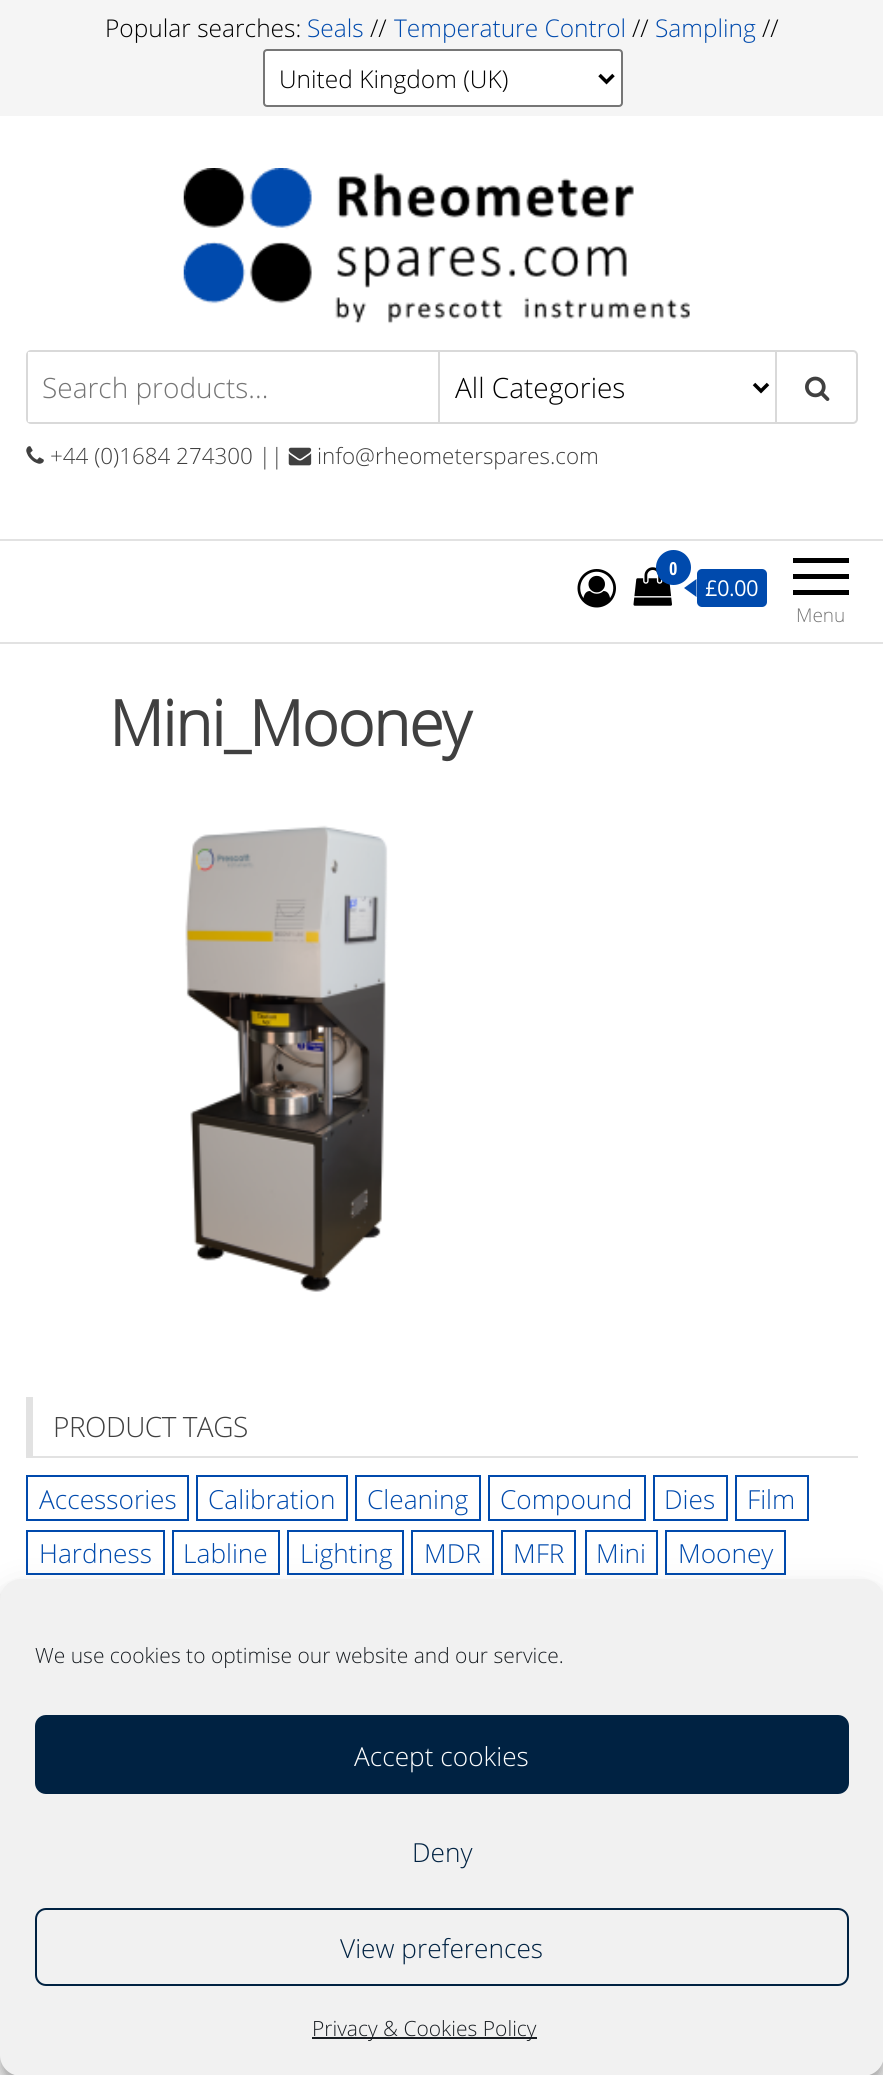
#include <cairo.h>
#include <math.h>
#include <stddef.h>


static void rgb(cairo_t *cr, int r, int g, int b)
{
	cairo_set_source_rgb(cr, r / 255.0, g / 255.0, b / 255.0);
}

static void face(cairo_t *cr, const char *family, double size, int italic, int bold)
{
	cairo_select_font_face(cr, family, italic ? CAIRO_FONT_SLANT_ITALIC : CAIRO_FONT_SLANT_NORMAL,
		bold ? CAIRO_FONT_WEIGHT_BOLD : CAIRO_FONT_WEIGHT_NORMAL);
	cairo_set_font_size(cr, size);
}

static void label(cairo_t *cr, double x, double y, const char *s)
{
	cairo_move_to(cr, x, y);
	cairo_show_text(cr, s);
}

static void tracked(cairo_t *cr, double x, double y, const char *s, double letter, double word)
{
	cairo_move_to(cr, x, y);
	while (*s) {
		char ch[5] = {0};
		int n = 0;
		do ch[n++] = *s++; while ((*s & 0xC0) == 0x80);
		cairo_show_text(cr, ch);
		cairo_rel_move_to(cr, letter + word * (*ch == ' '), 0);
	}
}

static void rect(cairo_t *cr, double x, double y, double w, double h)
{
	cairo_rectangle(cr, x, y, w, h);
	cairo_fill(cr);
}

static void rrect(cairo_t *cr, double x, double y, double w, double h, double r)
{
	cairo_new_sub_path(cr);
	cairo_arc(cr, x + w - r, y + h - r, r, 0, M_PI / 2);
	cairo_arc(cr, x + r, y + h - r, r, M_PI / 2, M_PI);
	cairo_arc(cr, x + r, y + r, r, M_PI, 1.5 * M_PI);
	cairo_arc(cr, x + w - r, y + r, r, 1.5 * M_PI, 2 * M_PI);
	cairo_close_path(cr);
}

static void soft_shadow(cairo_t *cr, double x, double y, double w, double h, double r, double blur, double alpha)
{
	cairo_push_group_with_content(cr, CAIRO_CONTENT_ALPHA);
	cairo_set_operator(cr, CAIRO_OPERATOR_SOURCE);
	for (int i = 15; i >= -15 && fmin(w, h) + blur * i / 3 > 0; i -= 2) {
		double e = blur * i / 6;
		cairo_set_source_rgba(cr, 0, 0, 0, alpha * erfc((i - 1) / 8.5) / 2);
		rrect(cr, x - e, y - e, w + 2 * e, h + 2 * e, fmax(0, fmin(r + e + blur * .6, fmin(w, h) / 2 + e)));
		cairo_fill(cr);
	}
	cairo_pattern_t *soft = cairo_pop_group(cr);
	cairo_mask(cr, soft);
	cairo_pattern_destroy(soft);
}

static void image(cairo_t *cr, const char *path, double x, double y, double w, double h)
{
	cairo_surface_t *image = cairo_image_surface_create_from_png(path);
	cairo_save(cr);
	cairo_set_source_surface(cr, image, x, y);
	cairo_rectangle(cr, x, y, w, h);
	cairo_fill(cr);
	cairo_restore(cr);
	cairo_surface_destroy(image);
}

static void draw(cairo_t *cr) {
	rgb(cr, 255, 255, 255);
	cairo_paint(cr);
	rgb(cr, 245, 245, 245);
	rect(cr, 0, 0, 883, 116);
	face(cr, "Open Sans Light", 24.5, 0, 0);
	rgb(cr, 0, 0, 0);
	label(cr, 105, 37, "Popular searches:");
	rgb(cr, 0, 74, 173);
	label(cr, 307, 37, "Seals");
	rgb(cr, 0, 0, 0);
	label(cr, 370, 37, "//");
	rgb(cr, 0, 74, 173);
	label(cr, 394, 37, "Temperature Control");
	rgb(cr, 0, 0, 0);
	label(cr, 632, 37, "//");
	rgb(cr, 0, 74, 173);
	label(cr, 655, 37, "Sampling");
	rgb(cr, 0, 0, 0);
	label(cr, 762, 37, "//");
	rgb(cr, 255, 255, 255);
	rrect(cr, 264, 50, 358, 56, 3);
	cairo_fill_preserve(cr);
	rgb(cr, 118, 118, 118);
	cairo_stroke(cr);
	cairo_new_path(cr);
	cairo_move_to(cr, 599.5, 75);
	cairo_line_to(cr, 606.5, 82);
	cairo_line_to(cr, 613.5, 75);
	rgb(cr, 0, 0, 0);
	cairo_set_line_width(cr, 3.5);
	cairo_stroke(cr);
	label(cr, 279, 88, "United Kingdom (UK)");
	image(cr, "image0.png", 183, 168, 507, 156);
	rrect(cr, 27, 351, 830, 72, 4);
	rgb(cr, 217, 217, 217);
	cairo_set_line_width(cr, 2);
	cairo_stroke(cr);
	rgb(cr, 255, 255, 255);
	rect(cr, 28, 352, 3, 70);
	rgb(cr, 217, 217, 217);
	rect(cr, 438, 352, 2, 70);
	face(cr, "Open Sans Light", 28, 0, 0);
	rgb(cr, 117, 117, 117);
	label(cr, 42, 398, "Search products...");
	cairo_new_path(cr);
	cairo_move_to(cr, 754, 384);
	cairo_line_to(cr, 761, 391);
	cairo_line_to(cr, 768, 384);
	rgb(cr, 0, 0, 0);
	cairo_set_line_width(cr, 3.5);
	cairo_stroke(cr);
	label(cr, 455, 398, "All Categories");
	rgb(cr, 217, 217, 217);
	rect(cr, 775, 352, 2, 70);
	image(cr, "image1.png", 805, 376, 25, 25);
	image(cr, "image2.png", 26, 446, 18, 18);
	face(cr, "Open Sans Light", 22.4, 0, 0);
	rgb(cr, 64, 64, 64);
	label(cr, 50, 464, "+44 (0)1684 274300 ||");
	image(cr, "image3.png", 288, 447, 24, 19);
	label(cr, 317, 464, "info@rheometerspares.com");
	rgb(cr, 226, 226, 226);
	rect(cr, 0, 539, 883, 2);
	rect(cr, 0, 642, 883, 2);
	image(cr, "image4.png", 577, 569, 39, 39);
	image(cr, "image5.png", 633, 567, 39, 39);
	rgb(cr, 0, 74, 173);
	cairo_arc(cr, 673.5, 567.5, 17.5, 0, 2 * M_PI);
	cairo_fill(cr);
	face(cr, "Open Sans Condensed", 18, 0, 1);
	rgb(cr, 255, 255, 255);
	label(cr, 669, 575, "0");
	rgb(cr, 0, 74, 173);
	rrect(cr, 697, 569, 70, 38, 5);
	cairo_fill(cr);
	cairo_new_path(cr);
	cairo_move_to(cr, 696.5, 579);
	cairo_line_to(cr, 696.5, 597);
	cairo_line_to(cr, 684, 588);
	cairo_close_path(cr);
	cairo_fill(cr);
	face(cr, "Open Sans", 21, 0, 1);
	rgb(cr, 255, 255, 255);
	label(cr, 705, 596, "£0.00");
	rgb(cr, 0, 0, 0);
	rect(cr, 793, 558, 56, 5);
	rect(cr, 793, 574, 56, 5);
	rect(cr, 793, 590, 56, 5);
	face(cr, "Open Sans Light", 19, 0, 0);
	rgb(cr, 117, 117, 117);
	label(cr, 796, 622, "Menu");
	face(cr, "Open Sans", 63, 0, 1);
	rgb(cr, 64, 64, 64);
	tracked(cr, 109, 746, "Mini_Mooney", -1.25, 0);
	image(cr, "image6.png", 185, 825, 203, 467);
	rgb(cr, 226, 226, 226);
	rect(cr, 26, 1456, 832, 2);
	rect(cr, 26, 1397, 7, 59);
	face(cr, "Open Sans Light", 28, 0, 0);
	rgb(cr, 64, 64, 64);
	tracked(cr, 53, 1437, "PRODUCT TAGS", -0.5, 0);
	cairo_rectangle(cr, 27, 1476, 161, 44);
	rgb(cr, 0, 74, 173);
	cairo_set_line_width(cr, 2);
	cairo_stroke(cr);
	face(cr, "Open Sans Light", 26.25, 0, 0);
	label(cr, 39, 1509, "Accessories");
	cairo_rectangle(cr, 197, 1476, 150, 44);
	cairo_stroke(cr);
	label(cr, 208, 1509, "Calibration");
	cairo_rectangle(cr, 356, 1476, 124, 44);
	cairo_stroke(cr);
	label(cr, 367, 1509, "Cleaning");
	cairo_rectangle(cr, 489, 1476, 156, 44);
	cairo_stroke(cr);
	label(cr, 500, 1509, "Compound");
	cairo_rectangle(cr, 654, 1476, 73, 44);
	cairo_stroke(cr);
	label(cr, 664, 1509, "Dies");
	cairo_rectangle(cr, 736, 1476, 72, 44);
	cairo_stroke(cr);
	label(cr, 747, 1509, "Film");
	cairo_rectangle(cr, 27, 1531, 137, 43);
	cairo_stroke(cr);
	label(cr, 39, 1563, "Hardness");
	cairo_rectangle(cr, 173, 1531, 106, 43);
	cairo_stroke(cr);
	label(cr, 183, 1563, "Labline");
	cairo_rectangle(cr, 288, 1531, 115, 43);
	cairo_stroke(cr);
	label(cr, 300, 1563, "Lighting");
	cairo_rectangle(cr, 412, 1531, 81, 43);
	cairo_stroke(cr);
	label(cr, 424, 1563, "MDR");
	cairo_rectangle(cr, 502, 1531, 73, 43);
	cairo_stroke(cr);
	label(cr, 513, 1563, "MFR");
	cairo_rectangle(cr, 586, 1531, 71, 43);
	cairo_stroke(cr);
	label(cr, 596, 1563, "Mini");
	cairo_rectangle(cr, 666, 1531, 119, 43);
	cairo_stroke(cr);
	label(cr, 678, 1563, "Mooney");
	rgb(cr, 0, 0, 0);
	soft_shadow(cr, 0, 1589, 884, 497, 21, 5, 0.23);
	soft_shadow(cr, 0, 1596, 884, 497, 21, 17.5, 0.19);
	rgb(cr, 241, 241, 241);
	rrect(cr, 0, 1579, 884, 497, 21);
	cairo_fill(cr);
	face(cr, "Open Sans Light", 21, 0, 0);
	rgb(cr, 25, 30, 35);
	label(cr, 35, 1663, "We use cookies to optimise our website and our service.");
	rgb(cr, 0, 34, 66);
	rrect(cr, 36, 1716, 812, 77, 10);
	cairo_fill_preserve(cr);
	cairo_stroke(cr);
	face(cr, "Open Sans Light", 26.25, 0, 0);
	rgb(cr, 255, 255, 255);
	label(cr, 354, 1766, "Accept cookies");
	rgb(cr, 0, 34, 66);
	label(cr, 412, 1862, "Deny");
	rrect(cr, 36, 1909, 812, 76, 10);
	cairo_stroke(cr);
	label(cr, 340, 1958, "View preferences");
	rgb(cr, 25, 30, 35);
	rect(cr, 312, 2037, 225, 2);
	face(cr, "Open Sans Light", 21, 0, 0);
	label(cr, 312, 2036, "Privacy & Cookies Policy");
}

int main(void) {
	cairo_surface_t *surface = cairo_image_surface_create(CAIRO_FORMAT_RGB24, 883, 2075);
	cairo_t *cr = cairo_create(surface);
	cairo_font_options_t *options = cairo_font_options_create();
	cairo_font_options_set_hint_metrics(options, CAIRO_HINT_METRICS_OFF);
	cairo_font_options_set_hint_style(options, CAIRO_HINT_STYLE_NONE);
	cairo_set_font_options(cr, options);
	cairo_set_miter_limit(cr, 4);
	draw(cr);
	cairo_surface_write_to_png(surface, "render.png");
	cairo_font_options_destroy(options);
	cairo_destroy(cr);
	cairo_surface_destroy(surface);
	return 0;
}
